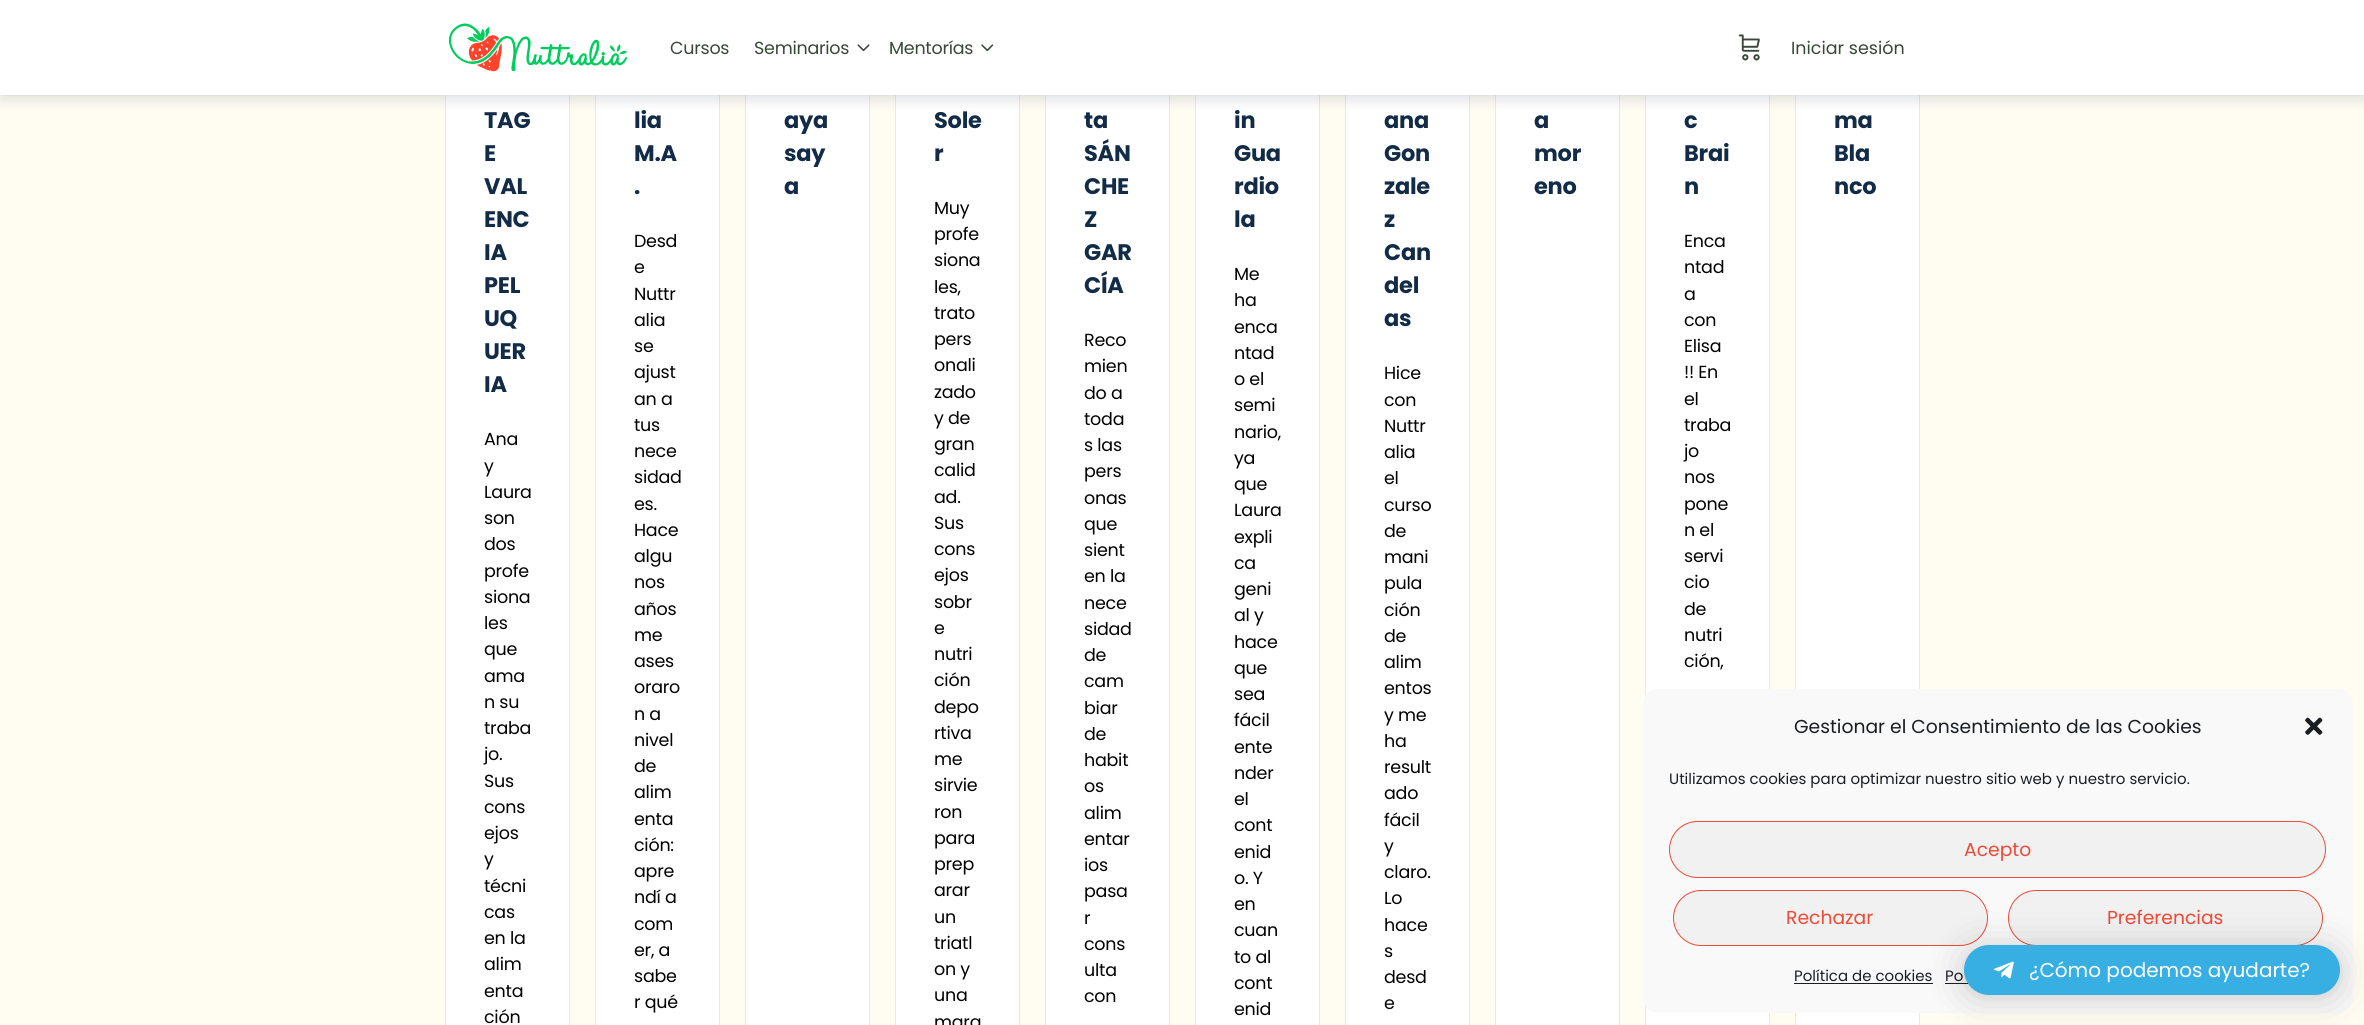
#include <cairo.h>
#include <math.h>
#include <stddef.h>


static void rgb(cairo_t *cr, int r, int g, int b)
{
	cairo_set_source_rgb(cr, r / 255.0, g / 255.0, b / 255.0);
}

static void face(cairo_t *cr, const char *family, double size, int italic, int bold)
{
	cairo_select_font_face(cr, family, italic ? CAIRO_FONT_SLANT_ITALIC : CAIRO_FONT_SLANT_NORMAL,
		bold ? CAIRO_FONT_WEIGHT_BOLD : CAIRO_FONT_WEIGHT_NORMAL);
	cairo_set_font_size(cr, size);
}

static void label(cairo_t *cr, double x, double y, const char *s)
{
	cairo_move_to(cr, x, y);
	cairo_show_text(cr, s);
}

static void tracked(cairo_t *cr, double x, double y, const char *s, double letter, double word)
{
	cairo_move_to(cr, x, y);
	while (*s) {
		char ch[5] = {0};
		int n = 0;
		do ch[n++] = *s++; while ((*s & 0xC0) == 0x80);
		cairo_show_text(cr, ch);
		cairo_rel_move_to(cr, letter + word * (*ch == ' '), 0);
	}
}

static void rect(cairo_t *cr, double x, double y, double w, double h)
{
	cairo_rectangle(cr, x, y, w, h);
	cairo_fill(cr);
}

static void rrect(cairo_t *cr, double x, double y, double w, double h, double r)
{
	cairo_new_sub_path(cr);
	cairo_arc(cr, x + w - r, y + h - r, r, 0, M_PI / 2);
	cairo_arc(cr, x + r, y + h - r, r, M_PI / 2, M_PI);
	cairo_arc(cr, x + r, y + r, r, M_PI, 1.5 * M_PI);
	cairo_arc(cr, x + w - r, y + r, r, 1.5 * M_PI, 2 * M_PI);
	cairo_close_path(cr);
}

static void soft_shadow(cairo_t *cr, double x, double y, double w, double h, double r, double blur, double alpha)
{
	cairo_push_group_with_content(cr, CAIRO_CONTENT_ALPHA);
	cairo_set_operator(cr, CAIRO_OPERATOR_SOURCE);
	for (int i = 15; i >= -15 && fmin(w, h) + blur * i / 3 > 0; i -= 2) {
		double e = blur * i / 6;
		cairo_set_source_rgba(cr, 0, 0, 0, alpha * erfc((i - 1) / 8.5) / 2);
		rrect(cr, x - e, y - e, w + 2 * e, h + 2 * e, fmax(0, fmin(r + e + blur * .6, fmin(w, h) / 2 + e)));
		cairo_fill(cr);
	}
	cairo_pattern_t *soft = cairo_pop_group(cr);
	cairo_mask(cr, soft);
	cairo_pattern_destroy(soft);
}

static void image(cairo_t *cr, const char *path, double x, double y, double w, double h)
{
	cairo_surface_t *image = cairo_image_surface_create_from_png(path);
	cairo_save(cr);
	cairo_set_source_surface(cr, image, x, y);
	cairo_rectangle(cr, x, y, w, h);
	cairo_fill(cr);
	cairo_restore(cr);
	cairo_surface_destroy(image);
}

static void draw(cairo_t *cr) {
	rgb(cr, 255, 253, 242);
	cairo_paint(cr);
	rgb(cr, 255, 255, 255);
	rect(cr, 446, 95, 123, 930);
	cairo_rectangle(cr, 445.5, 45.5, 124, 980);
	rgb(cr, 231, 233, 236);
	cairo_set_line_width(cr, 1);
	cairo_stroke(cr);
	rgb(cr, 255, 255, 255);
	rect(cr, 596, 95, 123, 930);
	cairo_rectangle(cr, 595.5, 45.5, 124, 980);
	rgb(cr, 231, 233, 236);
	cairo_stroke(cr);
	rgb(cr, 255, 255, 255);
	rect(cr, 746, 95, 123, 930);
	cairo_rectangle(cr, 745.5, 45.5, 124, 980);
	rgb(cr, 231, 233, 236);
	cairo_stroke(cr);
	rgb(cr, 255, 255, 255);
	rect(cr, 896, 95, 123, 930);
	cairo_rectangle(cr, 895.5, 45.5, 124, 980);
	rgb(cr, 231, 233, 236);
	cairo_stroke(cr);
	rgb(cr, 255, 255, 255);
	rect(cr, 1046, 95, 123, 930);
	cairo_rectangle(cr, 1045.5, 45.5, 124, 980);
	rgb(cr, 231, 233, 236);
	cairo_stroke(cr);
	rgb(cr, 255, 255, 255);
	rect(cr, 1196, 95, 123, 930);
	cairo_rectangle(cr, 1195.5, 45.5, 124, 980);
	rgb(cr, 231, 233, 236);
	cairo_stroke(cr);
	rgb(cr, 255, 255, 255);
	rect(cr, 1346, 95, 123, 930);
	cairo_rectangle(cr, 1345.5, 45.5, 124, 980);
	rgb(cr, 231, 233, 236);
	cairo_stroke(cr);
	rgb(cr, 255, 255, 255);
	rect(cr, 1496, 95, 123, 930);
	cairo_rectangle(cr, 1495.5, 45.5, 124, 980);
	rgb(cr, 231, 233, 236);
	cairo_stroke(cr);
	rgb(cr, 255, 255, 255);
	rect(cr, 1646, 95, 123, 930);
	cairo_rectangle(cr, 1645.5, 45.5, 124, 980);
	rgb(cr, 231, 233, 236);
	cairo_stroke(cr);
	rgb(cr, 255, 255, 255);
	rect(cr, 1796, 95, 123, 930);
	cairo_rectangle(cr, 1795.5, 45.5, 124, 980);
	rgb(cr, 231, 233, 236);
	cairo_stroke(cr);
	rgb(cr, 65, 71, 108);
	soft_shadow(cr, 0, 6, 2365, 95, 0, 6, 0.15);
	cairo_set_source_rgba(cr, 0.545, 0.553, 0.616, 0.05);
	rect(cr, 0, 95, 2364, 1);
	rgb(cr, 255, 255, 255);
	rect(cr, 0, 0, 2364, 95);
	image(cr, "image0.png", 448, 23, 180, 49);
	face(cr, "Poppins", 17.5, 0, 0);
	rgb(cr, 57, 71, 57);
	tracked(cr, 670, 54, "Cursos", -0.25, 0);
	tracked(cr, 754, 54, "Seminarios", -0.25, 0);
	image(cr, "image1.png", 857, 44, 13, 8);
	tracked(cr, 889, 54, "Mentorías", -0.25, 0);
	image(cr, "image2.png", 981, 44, 13, 8);
	image(cr, "image3.png", 1738, 34, 22, 27);
	label(cr, 1791, 54, "Iniciar sesión");
	face(cr, "Poppins", 22.5, 0, 1);
	rgb(cr, 18, 43, 70);
	tracked(cr, 484, 128, "TAG", -0.25, 0);
	tracked(cr, 484, 161, "E", -0.25, 0);
	tracked(cr, 484, 194, "VAL", -0.25, 0);
	tracked(cr, 484, 227, "ENC", -0.25, 0);
	tracked(cr, 484, 260, "IA", -0.25, 0);
	tracked(cr, 484, 293, "PEL", -0.25, 0);
	tracked(cr, 484, 326, "UQ", -0.25, 0);
	tracked(cr, 484, 359, "UER", -0.25, 0);
	tracked(cr, 484, 392, "IA", -0.25, 0);
	face(cr, "Poppins", 17.5, 0, 0);
	rgb(cr, 0, 0, 0);
	tracked(cr, 484, 445, "Ana", -0.25, 0);
	tracked(cr, 484, 472, "y", -0.25, 0);
	tracked(cr, 484, 498, "Laura", -0.25, 0);
	tracked(cr, 484, 524, "son", -0.25, 0);
	tracked(cr, 484, 550, "dos", -0.25, 0);
	tracked(cr, 484, 577, "profe", -0.25, 0);
	tracked(cr, 484, 603, "siona", -0.25, 0);
	tracked(cr, 484, 629, "les", -0.25, 0);
	tracked(cr, 484, 655, "que", -0.25, 0);
	tracked(cr, 484, 682, "ama", -0.25, 0);
	tracked(cr, 484, 708, "n su", -0.25, 0);
	tracked(cr, 484, 734, "traba", -0.25, 0);
	tracked(cr, 484, 760, "jo.", -0.25, 0);
	tracked(cr, 484, 787, "Sus", -0.25, 0);
	tracked(cr, 484, 813, "cons", -0.25, 0);
	tracked(cr, 484, 839, "ejos", -0.25, 0);
	tracked(cr, 484, 865, "y", -0.25, 0);
	tracked(cr, 484, 892, "técni", -0.25, 0);
	tracked(cr, 484, 918, "cas", -0.25, 0);
	tracked(cr, 484, 944, "en la", -0.25, 0);
	tracked(cr, 484, 970, "alim", -0.25, 0);
	tracked(cr, 484, 997, "enta", -0.25, 0);
	tracked(cr, 484, 1023, "ción", -0.25, 0);
	face(cr, "Poppins", 22.5, 0, 1);
	rgb(cr, 18, 43, 70);
	tracked(cr, 634, 128, "lia", -0.25, 0);
	tracked(cr, 634, 161, "M.A", -0.25, 0);
	tracked(cr, 634, 194, ".", -0.25, 0);
	face(cr, "Poppins", 17.5, 0, 0);
	rgb(cr, 0, 0, 0);
	tracked(cr, 634, 247, "Desd", -0.25, 0);
	tracked(cr, 634, 273, "e", -0.25, 0);
	tracked(cr, 634, 300, "Nuttr", -0.25, 0);
	tracked(cr, 634, 326, "alia", -0.25, 0);
	tracked(cr, 634, 352, "se", -0.25, 0);
	tracked(cr, 634, 378, "ajust", -0.25, 0);
	tracked(cr, 634, 405, "an a", -0.25, 0);
	tracked(cr, 634, 431, "tus", -0.25, 0);
	tracked(cr, 634, 457, "nece", -0.25, 0);
	tracked(cr, 634, 483, "sidad", -0.25, 0);
	tracked(cr, 634, 510, "es.", -0.25, 0);
	tracked(cr, 634, 536, "Hace", -0.25, 0);
	tracked(cr, 634, 562, "algu", -0.25, 0);
	tracked(cr, 634, 588, "nos", -0.25, 0);
	tracked(cr, 634, 615, "años", -0.25, 0);
	tracked(cr, 634, 641, "me", -0.25, 0);
	tracked(cr, 634, 667, "ases", -0.25, 0);
	tracked(cr, 634, 693, "oraro", -0.25, 0);
	tracked(cr, 634, 720, "n a", -0.25, 0);
	tracked(cr, 634, 746, "nivel", -0.25, 0);
	tracked(cr, 634, 772, "de", -0.25, 0);
	tracked(cr, 634, 798, "alim", -0.25, 0);
	tracked(cr, 634, 825, "enta", -0.25, 0);
	tracked(cr, 634, 851, "ción:", -0.25, 0);
	tracked(cr, 634, 877, "apre", -0.25, 0);
	tracked(cr, 634, 903, "ndí a", -0.25, 0);
	tracked(cr, 634, 930, "com", -0.25, 0);
	tracked(cr, 634, 956, "er, a", -0.25, 0);
	tracked(cr, 634, 982, "sabe", -0.25, 0);
	tracked(cr, 634, 1008, "r qué", -0.25, 0);
	face(cr, "Poppins", 22.5, 0, 1);
	rgb(cr, 18, 43, 70);
	tracked(cr, 784, 128, "aya", -0.25, 0);
	tracked(cr, 784, 161, "say", -0.25, 0);
	tracked(cr, 784, 194, "a", -0.25, 0);
	tracked(cr, 934, 128, "Sole", -0.25, 0);
	tracked(cr, 934, 161, "r", -0.25, 0);
	face(cr, "Poppins", 17.5, 0, 0);
	rgb(cr, 0, 0, 0);
	tracked(cr, 934, 214, "Muy", -0.25, 0);
	tracked(cr, 934, 240, "profe", -0.25, 0);
	tracked(cr, 934, 266, "siona", -0.25, 0);
	tracked(cr, 934, 293, "les,", -0.25, 0);
	tracked(cr, 934, 319, "trato", -0.25, 0);
	tracked(cr, 934, 345, "pers", -0.25, 0);
	tracked(cr, 934, 371, "onali", -0.25, 0);
	tracked(cr, 934, 398, "zado", -0.25, 0);
	tracked(cr, 934, 424, "y de", -0.25, 0);
	tracked(cr, 934, 450, "gran", -0.25, 0);
	tracked(cr, 934, 476, "calid", -0.25, 0);
	tracked(cr, 934, 503, "ad.", -0.25, 0);
	tracked(cr, 934, 529, "Sus", -0.25, 0);
	tracked(cr, 934, 555, "cons", -0.25, 0);
	tracked(cr, 934, 581, "ejos", -0.25, 0);
	tracked(cr, 934, 608, "sobr", -0.25, 0);
	tracked(cr, 934, 634, "e", -0.25, 0);
	tracked(cr, 934, 660, "nutri", -0.25, 0);
	tracked(cr, 934, 686, "ción", -0.25, 0);
	tracked(cr, 934, 713, "depo", -0.25, 0);
	tracked(cr, 934, 739, "rtiva", -0.25, 0);
	tracked(cr, 934, 765, "me", -0.25, 0);
	tracked(cr, 934, 791, "sirvie", -0.25, 0);
	tracked(cr, 934, 818, "ron", -0.25, 0);
	tracked(cr, 934, 844, "para", -0.25, 0);
	tracked(cr, 934, 870, "prep", -0.25, 0);
	tracked(cr, 934, 896, "arar", -0.25, 0);
	tracked(cr, 934, 923, "un", -0.25, 0);
	tracked(cr, 934, 949, "triatl", -0.25, 0);
	tracked(cr, 934, 975, "on y", -0.25, 0);
	tracked(cr, 934, 1001, "una", -0.25, 0);
	tracked(cr, 934, 1028, "mara", -0.25, 0);
	face(cr, "Poppins", 22.5, 0, 1);
	rgb(cr, 18, 43, 70);
	tracked(cr, 1084, 128, "ta", -0.25, 0);
	tracked(cr, 1084, 161, "SÁN", -0.25, 0);
	tracked(cr, 1084, 194, "CHE", -0.25, 0);
	tracked(cr, 1084, 227, "Z", -0.25, 0);
	tracked(cr, 1084, 260, "GAR", -0.25, 0);
	tracked(cr, 1084, 293, "CÍA", -0.25, 0);
	face(cr, "Poppins", 17.5, 0, 0);
	rgb(cr, 0, 0, 0);
	tracked(cr, 1084, 346, "Reco", -0.25, 0);
	tracked(cr, 1084, 372, "mien", -0.25, 0);
	tracked(cr, 1084, 399, "do a", -0.25, 0);
	tracked(cr, 1084, 425, "toda", -0.25, 0);
	tracked(cr, 1084, 451, "s las", -0.25, 0);
	tracked(cr, 1084, 477, "pers", -0.25, 0);
	tracked(cr, 1084, 504, "onas", -0.25, 0);
	tracked(cr, 1084, 530, "que", -0.25, 0);
	tracked(cr, 1084, 556, "sient", -0.25, 0);
	tracked(cr, 1084, 582, "en la", -0.25, 0);
	tracked(cr, 1084, 609, "nece", -0.25, 0);
	tracked(cr, 1084, 635, "sidad", -0.25, 0);
	tracked(cr, 1084, 661, "de", -0.25, 0);
	tracked(cr, 1084, 687, "cam", -0.25, 0);
	tracked(cr, 1084, 714, "biar", -0.25, 0);
	tracked(cr, 1084, 740, "de", -0.25, 0);
	tracked(cr, 1084, 766, "habit", -0.25, 0);
	tracked(cr, 1084, 792, "os", -0.25, 0);
	tracked(cr, 1084, 819, "alim", -0.25, 0);
	tracked(cr, 1084, 845, "entar", -0.25, 0);
	tracked(cr, 1084, 871, "ios", -0.25, 0);
	tracked(cr, 1084, 897, "pasa", -0.25, 0);
	tracked(cr, 1084, 924, "r", -0.25, 0);
	tracked(cr, 1084, 950, "cons", -0.25, 0);
	tracked(cr, 1084, 976, "ulta", -0.25, 0);
	tracked(cr, 1084, 1002, "con", -0.25, 0);
	face(cr, "Poppins", 22.5, 0, 1);
	rgb(cr, 18, 43, 70);
	tracked(cr, 1234, 128, "in", -0.25, 0);
	tracked(cr, 1234, 161, "Gua", -0.25, 0);
	tracked(cr, 1234, 194, "rdio", -0.25, 0);
	tracked(cr, 1234, 227, "la", -0.25, 0);
	face(cr, "Poppins", 17.5, 0, 0);
	rgb(cr, 0, 0, 0);
	tracked(cr, 1234, 280, "Me", -0.25, 0);
	tracked(cr, 1234, 306, "ha", -0.25, 0);
	tracked(cr, 1234, 333, "enca", -0.25, 0);
	tracked(cr, 1234, 359, "ntad", -0.25, 0);
	tracked(cr, 1234, 385, "o el", -0.25, 0);
	tracked(cr, 1234, 411, "semi", -0.25, 0);
	tracked(cr, 1234, 438, "nario,", -0.25, 0);
	tracked(cr, 1234, 464, "ya", -0.25, 0);
	tracked(cr, 1234, 490, "que", -0.25, 0);
	tracked(cr, 1234, 516, "Laura", -0.25, 0);
	tracked(cr, 1234, 543, "expli", -0.25, 0);
	tracked(cr, 1234, 569, "ca", -0.25, 0);
	tracked(cr, 1234, 595, "geni", -0.25, 0);
	tracked(cr, 1234, 621, "al y", -0.25, 0);
	tracked(cr, 1234, 648, "hace", -0.25, 0);
	tracked(cr, 1234, 674, "que", -0.25, 0);
	tracked(cr, 1234, 700, "sea", -0.25, 0);
	tracked(cr, 1234, 726, "fácil", -0.25, 0);
	tracked(cr, 1234, 753, "ente", -0.25, 0);
	tracked(cr, 1234, 779, "nder", -0.25, 0);
	tracked(cr, 1234, 805, "el", -0.25, 0);
	tracked(cr, 1234, 831, "cont", -0.25, 0);
	tracked(cr, 1234, 858, "enid", -0.25, 0);
	tracked(cr, 1234, 884, "o. Y", -0.25, 0);
	tracked(cr, 1234, 910, "en", -0.25, 0);
	tracked(cr, 1234, 936, "cuan", -0.25, 0);
	tracked(cr, 1234, 963, "to al", -0.25, 0);
	tracked(cr, 1234, 989, "cont", -0.25, 0);
	tracked(cr, 1234, 1015, "enid", -0.25, 0);
	face(cr, "Poppins", 22.5, 0, 1);
	rgb(cr, 18, 43, 70);
	tracked(cr, 1384, 128, "ana", -0.25, 0);
	tracked(cr, 1384, 161, "Gon", -0.25, 0);
	tracked(cr, 1384, 194, "zale", -0.25, 0);
	tracked(cr, 1384, 227, "z", -0.25, 0);
	tracked(cr, 1384, 260, "Can", -0.25, 0);
	tracked(cr, 1384, 293, "del", -0.25, 0);
	tracked(cr, 1384, 326, "as", -0.25, 0);
	face(cr, "Poppins", 17.5, 0, 0);
	rgb(cr, 0, 0, 0);
	tracked(cr, 1384, 379, "Hice", -0.25, 0);
	tracked(cr, 1384, 406, "con", -0.25, 0);
	tracked(cr, 1384, 432, "Nuttr", -0.25, 0);
	tracked(cr, 1384, 458, "alia", -0.25, 0);
	tracked(cr, 1384, 484, "el", -0.25, 0);
	tracked(cr, 1384, 511, "curso", -0.25, 0);
	tracked(cr, 1384, 537, "de", -0.25, 0);
	tracked(cr, 1384, 563, "mani", -0.25, 0);
	tracked(cr, 1384, 589, "pula", -0.25, 0);
	tracked(cr, 1384, 616, "ción", -0.25, 0);
	tracked(cr, 1384, 642, "de", -0.25, 0);
	tracked(cr, 1384, 668, "alim", -0.25, 0);
	tracked(cr, 1384, 694, "entos", -0.25, 0);
	tracked(cr, 1384, 721, "y me", -0.25, 0);
	tracked(cr, 1384, 747, "ha", -0.25, 0);
	tracked(cr, 1384, 773, "result", -0.25, 0);
	tracked(cr, 1384, 799, "ado", -0.25, 0);
	tracked(cr, 1384, 826, "fácil", -0.25, 0);
	tracked(cr, 1384, 852, "y", -0.25, 0);
	tracked(cr, 1384, 878, "claro.", -0.25, 0);
	tracked(cr, 1384, 904, "Lo", -0.25, 0);
	tracked(cr, 1384, 931, "hace", -0.25, 0);
	tracked(cr, 1384, 957, "s", -0.25, 0);
	tracked(cr, 1384, 983, "desd", -0.25, 0);
	tracked(cr, 1384, 1009, "e", -0.25, 0);
	face(cr, "Poppins", 22.5, 0, 1);
	rgb(cr, 18, 43, 70);
	tracked(cr, 1534, 128, "a", -0.25, 0);
	tracked(cr, 1534, 161, "mor", -0.25, 0);
	tracked(cr, 1534, 194, "eno", -0.25, 0);
	tracked(cr, 1684, 128, "c", -0.25, 0);
	tracked(cr, 1684, 161, "Brai", -0.25, 0);
	tracked(cr, 1684, 194, "n", -0.25, 0);
	face(cr, "Poppins", 17.5, 0, 0);
	rgb(cr, 0, 0, 0);
	tracked(cr, 1684, 247, "Enca", -0.25, 0);
	tracked(cr, 1684, 273, "ntad", -0.25, 0);
	tracked(cr, 1684, 300, "a", -0.25, 0);
	tracked(cr, 1684, 326, "con", -0.25, 0);
	tracked(cr, 1684, 352, "Elisa", -0.25, 0);
	tracked(cr, 1684, 378, "!! En", -0.25, 0);
	tracked(cr, 1684, 405, "el", -0.25, 0);
	tracked(cr, 1684, 431, "traba", -0.25, 0);
	tracked(cr, 1684, 457, "jo", -0.25, 0);
	tracked(cr, 1684, 483, "nos", -0.25, 0);
	tracked(cr, 1684, 510, "pone", -0.25, 0);
	tracked(cr, 1684, 536, "n el", -0.25, 0);
	tracked(cr, 1684, 562, "servi", -0.25, 0);
	tracked(cr, 1684, 588, "cio", -0.25, 0);
	tracked(cr, 1684, 615, "de", -0.25, 0);
	tracked(cr, 1684, 641, "nutri", -0.25, 0);
	tracked(cr, 1684, 667, "ción,", -0.25, 0);
	face(cr, "Poppins", 22.5, 0, 1);
	rgb(cr, 18, 43, 70);
	tracked(cr, 1834, 128, "ma", -0.25, 0);
	tracked(cr, 1834, 161, "Bla", -0.25, 0);
	tracked(cr, 1834, 194, "nco", -0.25, 0);
	rgb(cr, 249, 249, 249);
	rrect(cr, 1643.5, 689.5, 709, 323, 14.5);
	cairo_fill_preserve(cr);
	cairo_stroke(cr);
	face(cr, "Poppins", 18.75, 0, 0);
	rgb(cr, 25, 30, 35);
	label(cr, 1794, 733, "Gestionar el Consentimiento de las Cookies");
	image(cr, "image4.png", 2305, 717, 18, 18);
	face(cr, "Poppins", 15, 0, 0);
	label(cr, 1669, 784, "Utilizamos cookies para optimizar nuestro sitio web y nuestro servicio.");
	rgb(cr, 241, 241, 241);
	rrect(cr, 1669.5, 821.5, 656, 56, 28);
	cairo_fill_preserve(cr);
	rgb(cr, 237, 75, 54);
	cairo_stroke(cr);
	face(cr, "Poppins", 18.75, 0, 0);
	label(cr, 1964, 856, "Acepto");
	rgb(cr, 241, 241, 241);
	rrect(cr, 1673.5, 890.5, 314, 55, 27.5);
	cairo_fill_preserve(cr);
	rgb(cr, 237, 75, 54);
	cairo_stroke(cr);
	label(cr, 1786, 924, "Rechazar");
	rgb(cr, 241, 241, 241);
	rrect(cr, 2008.5, 890.5, 314, 55, 27.5);
	cairo_fill_preserve(cr);
	rgb(cr, 237, 75, 54);
	cairo_stroke(cr);
	label(cr, 2107, 924, "Preferencias");
	face(cr, "Poppins", 15, 0, 0);
	rgb(cr, 25, 30, 35);
	label(cr, 1794, 981, "Política de cookies");
	rect(cr, 1794, 983, 139, 1);
	label(cr, 1945, 981, "Po");
	rect(cr, 1945, 983, 24, 1);
	rgb(cr, 0, 0, 0);
	soft_shadow(cr, 1964, 948, 376, 50, 25, 20, 0.16);
	soft_shadow(cr, 1964, 946, 376, 50, 25, 4, 0.06);
	rgb(cr, 55, 175, 226);
	rrect(cr, 1964, 945, 376, 50, 25);
	cairo_fill(cr);
	image(cr, "image5.png", 1993, 961, 21, 18);
	face(cr, "Poppins", 20, 0, 0);
	rgb(cr, 255, 255, 255);
	label(cr, 2029, 977, "¿Cómo podemos ayudarte?");
}

int main(void) {
	cairo_surface_t *surface = cairo_image_surface_create(CAIRO_FORMAT_RGB24, 2364, 1025);
	cairo_t *cr = cairo_create(surface);
	cairo_font_options_t *options = cairo_font_options_create();
	cairo_font_options_set_hint_metrics(options, CAIRO_HINT_METRICS_OFF);
	cairo_font_options_set_hint_style(options, CAIRO_HINT_STYLE_NONE);
	cairo_set_font_options(cr, options);
	cairo_set_miter_limit(cr, 4);
	draw(cr);
	cairo_surface_write_to_png(surface, "render.png");
	cairo_font_options_destroy(options);
	cairo_destroy(cr);
	cairo_surface_destroy(surface);
	return 0;
}
